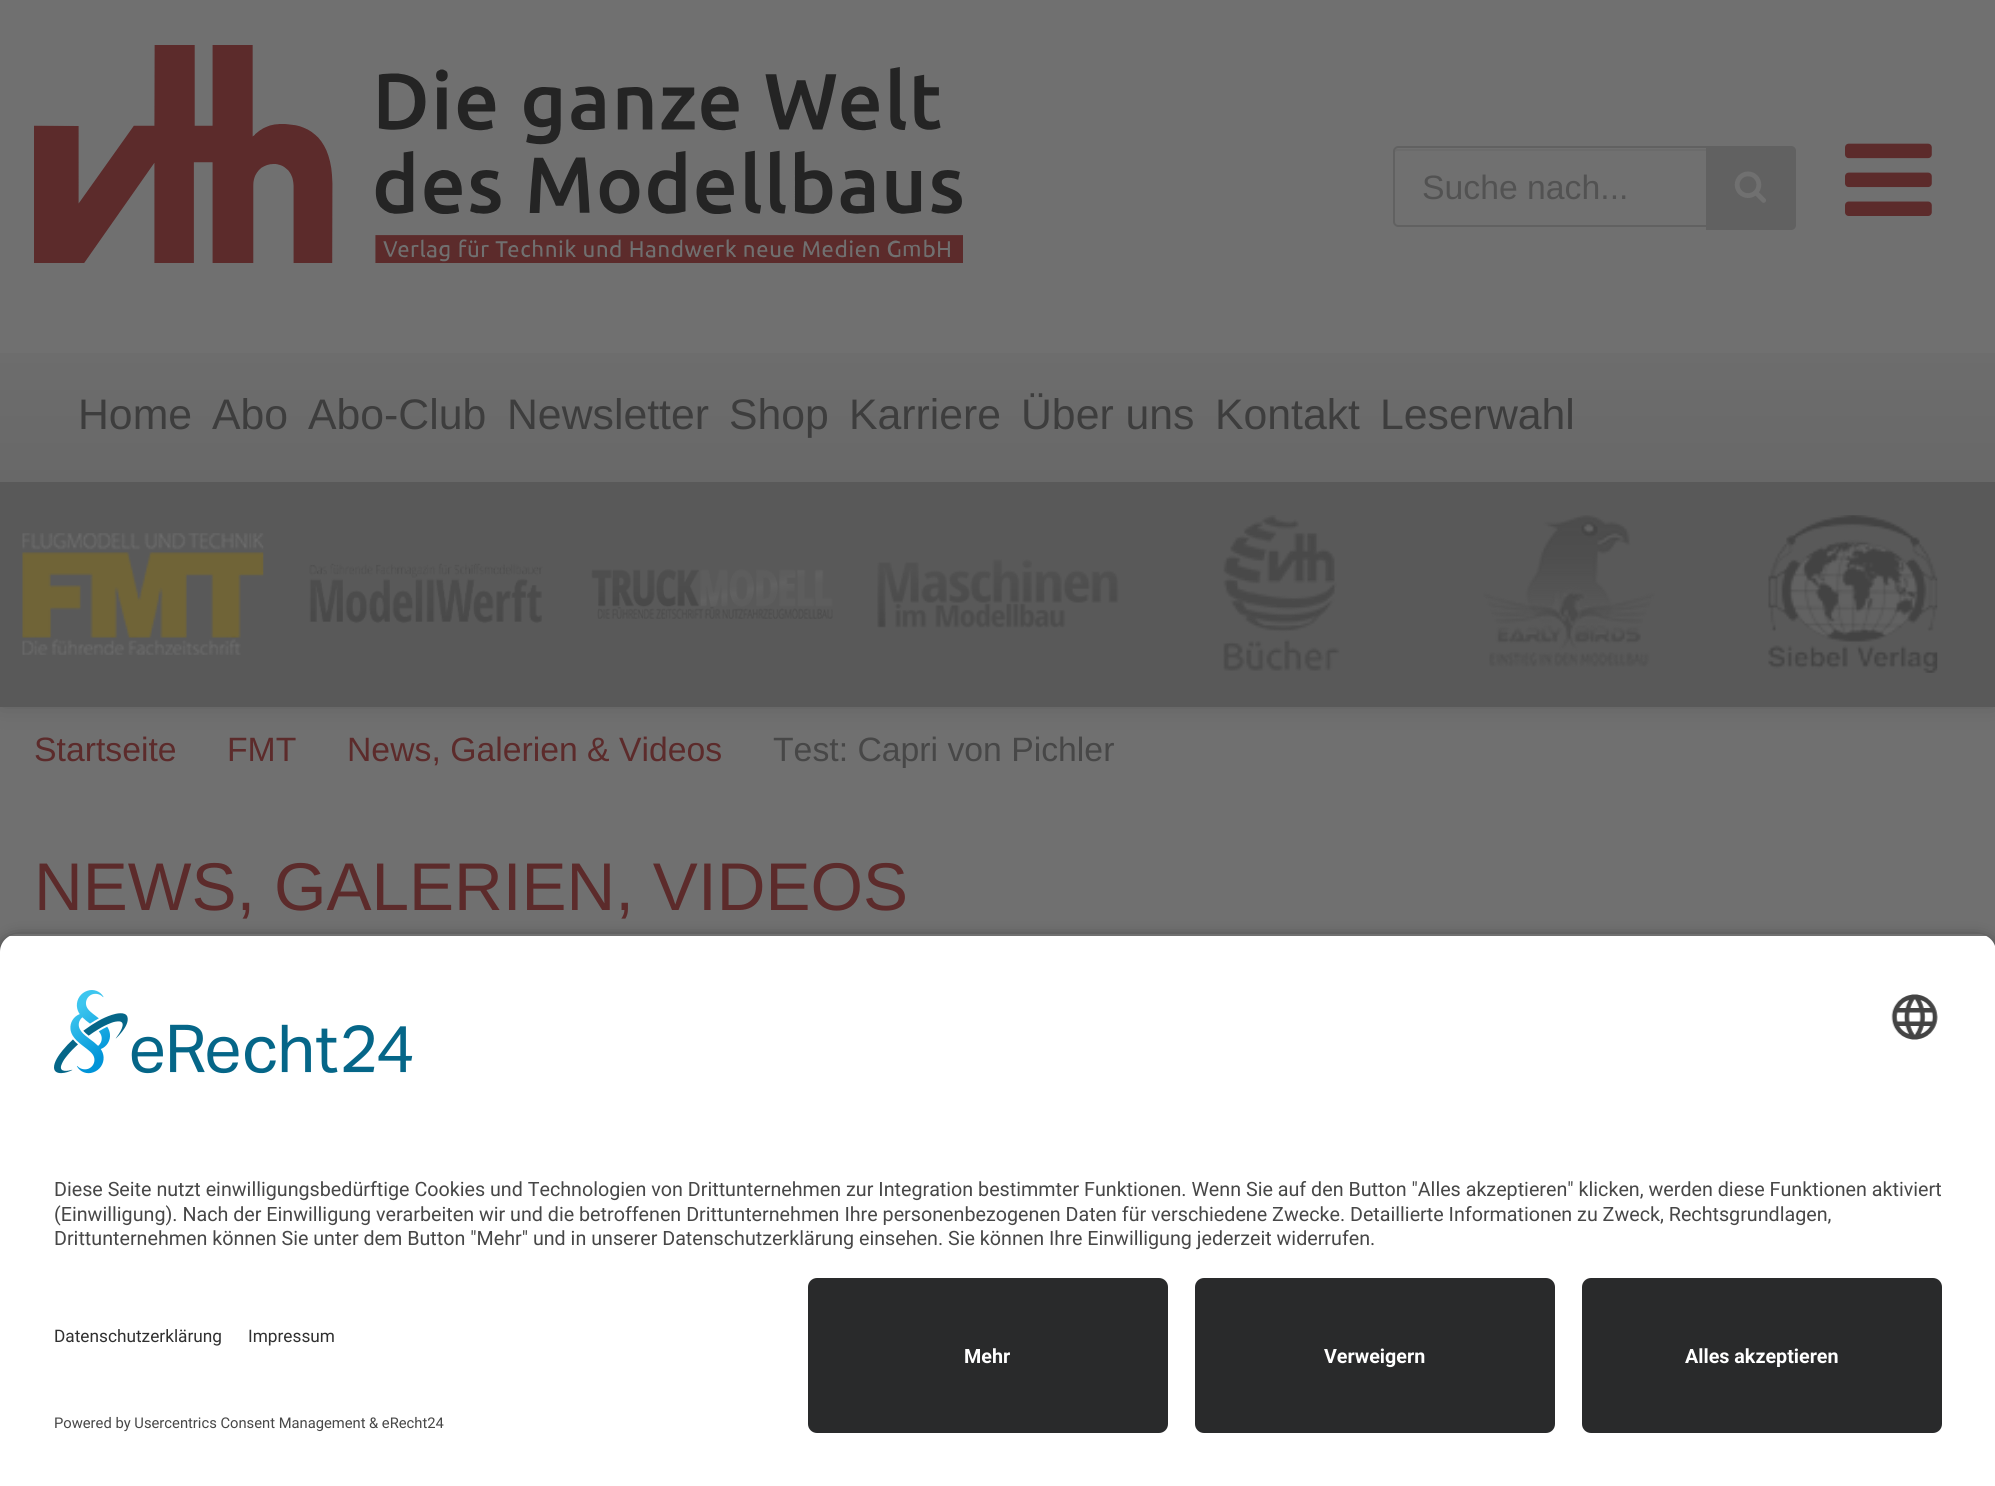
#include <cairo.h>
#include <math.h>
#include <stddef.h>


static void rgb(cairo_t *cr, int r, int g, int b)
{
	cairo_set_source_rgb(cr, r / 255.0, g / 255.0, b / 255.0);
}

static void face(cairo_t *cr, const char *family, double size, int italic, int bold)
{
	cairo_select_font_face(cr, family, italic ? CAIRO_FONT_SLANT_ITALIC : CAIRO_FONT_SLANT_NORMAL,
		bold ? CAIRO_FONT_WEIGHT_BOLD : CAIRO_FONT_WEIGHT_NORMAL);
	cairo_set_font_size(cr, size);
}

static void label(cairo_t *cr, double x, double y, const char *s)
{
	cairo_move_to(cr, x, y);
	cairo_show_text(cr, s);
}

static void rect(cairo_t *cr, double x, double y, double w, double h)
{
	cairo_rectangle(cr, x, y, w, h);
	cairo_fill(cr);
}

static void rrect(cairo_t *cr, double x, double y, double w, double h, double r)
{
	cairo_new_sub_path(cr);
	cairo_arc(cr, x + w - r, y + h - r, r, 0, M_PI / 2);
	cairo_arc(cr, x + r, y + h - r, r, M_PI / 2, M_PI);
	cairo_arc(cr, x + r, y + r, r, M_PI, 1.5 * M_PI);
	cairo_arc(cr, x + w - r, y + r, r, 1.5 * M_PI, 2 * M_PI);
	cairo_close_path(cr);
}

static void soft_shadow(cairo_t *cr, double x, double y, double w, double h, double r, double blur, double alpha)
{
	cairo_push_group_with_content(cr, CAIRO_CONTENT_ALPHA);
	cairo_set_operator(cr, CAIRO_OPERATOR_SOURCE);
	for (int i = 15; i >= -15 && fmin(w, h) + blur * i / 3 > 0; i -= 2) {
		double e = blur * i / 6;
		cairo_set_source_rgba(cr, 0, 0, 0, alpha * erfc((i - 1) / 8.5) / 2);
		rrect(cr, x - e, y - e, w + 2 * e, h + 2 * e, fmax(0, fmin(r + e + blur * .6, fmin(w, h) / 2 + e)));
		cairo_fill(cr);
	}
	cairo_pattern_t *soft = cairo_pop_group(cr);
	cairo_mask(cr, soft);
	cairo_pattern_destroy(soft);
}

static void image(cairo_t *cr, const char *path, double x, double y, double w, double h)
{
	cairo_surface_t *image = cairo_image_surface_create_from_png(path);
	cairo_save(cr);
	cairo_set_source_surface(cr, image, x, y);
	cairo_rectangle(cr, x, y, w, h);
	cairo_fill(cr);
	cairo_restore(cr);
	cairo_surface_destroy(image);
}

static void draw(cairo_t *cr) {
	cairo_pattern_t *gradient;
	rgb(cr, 112, 112, 112);
	cairo_paint(cr);
	image(cr, "image0.png", 34, 45, 929, 218);
	rgb(cr, 107, 107, 107);
	cairo_new_path(cr);
	cairo_move_to(cr, 1397, 151);
	cairo_line_to(cr, 1706, 151);
	cairo_line_to(cr, 1706, 149);
	cairo_line_to(cr, 1396, 149);
	cairo_curve_to(cr, 1395, 150, 1395, 152, 1395, 153);
	cairo_curve_to(cr, 1395, 152, 1396, 151, 1397, 151);
	cairo_close_path(cr);
	cairo_fill(cr);
	cairo_new_path(cr);
	cairo_move_to(cr, 1398, 147);
	cairo_line_to(cr, 1707, 147);
	cairo_line_to(cr, 1707, 226);
	cairo_line_to(cr, 1398, 226);
	cairo_curve_to(cr, 1396, 226, 1394, 224, 1394, 222);
	cairo_line_to(cr, 1394, 151);
	cairo_curve_to(cr, 1394, 149, 1396, 147, 1398, 147);
	cairo_close_path(cr);
	rgb(cr, 97, 97, 97);
	cairo_stroke(cr);
	face(cr, "Liberation Sans", 33.75, 0, 0);
	rgb(cr, 82, 82, 82);
	label(cr, 1422, 199, "Suche nach...");
	rgb(cr, 97, 97, 97);
	cairo_new_path(cr);
	cairo_move_to(cr, 1706, 146);
	cairo_line_to(cr, 1791, 146);
	cairo_curve_to(cr, 1794, 146, 1796, 148, 1796, 151);
	cairo_line_to(cr, 1796, 225);
	cairo_curve_to(cr, 1796, 228, 1794, 230, 1791, 230);
	cairo_line_to(cr, 1706, 230);
	cairo_close_path(cr);
	cairo_fill(cr);
	image(cr, "image1.png", 1734, 171, 32, 32);
	image(cr, "image2.png", 1845, 143, 87, 73);
	rgb(cr, 36, 36, 36);
	soft_shadow(cr, 0, 482, 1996, 225, 0, 12.5, 0.19);
	gradient = cairo_pattern_create_linear(998, 353, 998, 482);
	cairo_pattern_add_color_stop_rgba(gradient, 0, 0.427, 0.427, 0.427, 1);
	cairo_pattern_add_color_stop_rgba(gradient, 1, 0.408, 0.408, 0.408, 1);
	cairo_set_source(cr, gradient);
	cairo_pattern_destroy(gradient);
	rect(cr, 0, 353, 1995, 129);
	face(cr, "Liberation Sans", 42.75, 0, 0);
	rgb(cr, 61, 61, 61);
	label(cr, 78, 429, "Home");
	label(cr, 212, 429, "Abo");
	label(cr, 308, 429, "Abo-Club");
	label(cr, 507, 429, "Newsletter");
	label(cr, 729, 429, "Shop");
	label(cr, 849, 429, "Karriere");
	label(cr, 1021, 429, "Über uns");
	label(cr, 1215, 429, "Kontakt");
	label(cr, 1380, 429, "Leserwahl");
	rgb(cr, 89, 89, 89);
	rect(cr, 0, 482, 1995, 225);
	image(cr, "image3.png", 22, 533, 242, 122);
	image(cr, "image4.png", 309, 563, 234, 61);
	image(cr, "image5.png", 591, 569, 242, 50);
	image(cr, "image6.png", 877, 559, 242, 69);
	image(cr, "image7.png", 1223, 515, 117, 156);
	image(cr, "image8.png", 1483, 515, 172, 152);
	image(cr, "image9.png", 1768, 515, 170, 158);
	face(cr, "Liberation Sans", 33.75, 0, 0);
	rgb(cr, 92, 43, 43);
	label(cr, 34, 761, "Startseite");
	label(cr, 227, 761, "FMT");
	label(cr, 347, 761, "News, Galerien & Videos");
	rgb(cr, 71, 71, 71);
	label(cr, 773, 761, "Test: Capri von Pichler");
	face(cr, "Liberation Sans", 67.5, 0, 0);
	rgb(cr, 92, 43, 43);
	label(cr, 34, 910, "NEWS, GALERIEN, VIDEOS");
	cairo_save(cr);
	cairo_set_fill_rule(cr, CAIRO_FILL_RULE_EVEN_ODD);
	cairo_new_path(cr);
	cairo_move_to(cr, 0, 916);
	cairo_line_to(cr, 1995, 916);
	cairo_line_to(cr, 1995, 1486);
	cairo_line_to(cr, 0, 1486);
	cairo_close_path(cr);
	cairo_move_to(cr, 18, 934);
	cairo_line_to(cr, 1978, 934);
	cairo_curve_to(cr, 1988, 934, 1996, 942, 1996, 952);
	cairo_line_to(cr, 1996, 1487);
	cairo_line_to(cr, 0, 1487);
	cairo_line_to(cr, 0, 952);
	cairo_curve_to(cr, 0, 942, 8, 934, 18, 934);
	cairo_close_path(cr);
	cairo_clip(cr);
	rgb(cr, 0, 0, 0);
	soft_shadow(cr, 0, 941, 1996, 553, 18, 8, 0.8);
	cairo_restore(cr);
	cairo_save(cr);
	cairo_new_path(cr);
	cairo_move_to(cr, 18, 934);
	cairo_line_to(cr, 1978, 934);
	cairo_curve_to(cr, 1988, 934, 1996, 942, 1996, 952);
	cairo_line_to(cr, 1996, 1260);
	cairo_line_to(cr, 0, 1260);
	cairo_line_to(cr, 0, 952);
	cairo_curve_to(cr, 0, 942, 8, 934, 18, 934);
	cairo_close_path(cr);
	cairo_clip(cr);
	rgb(cr, 255, 255, 255);
	rect(cr, 0, 936, 1995, 324);
	cairo_restore(cr);
	image(cr, "image10.png", 54, 990, 359, 84);
	image(cr, "image11.png", 1891, 994, 47, 46);
	face(cr, "Roboto", 19.7, 0, 0);
	rgb(cr, 71, 71, 71);
	label(cr, 54, 1196, "Diese Seite nutzt einwilligungsbedürftige Cookies und Technologien von Drittunternehmen zur Integration bestimmter Funktionen. Wenn Sie auf den Button \"Alles akzeptieren\" klicken, werden diese Funktionen aktiviert");
	label(cr, 54, 1221, "(Einwilligung). Nach der Einwilligung verarbeiten wir und die betroffenen Drittunternehmen Ihre personenbezogenen Daten für verschiedene Zwecke. Detaillierte Informationen zu Zweck, Rechtsgrundlagen,");
	label(cr, 54, 1245, "Drittunternehmen können Sie unter dem Button \"Mehr\" und in unserer Datenschutzerklärung einsehen. Sie können Ihre Einwilligung jederzeit widerrufen.");
	rgb(cr, 255, 255, 255);
	rect(cr, 0, 1260, 1995, 226);
	face(cr, "Roboto", 17.25, 0, 0);
	rgb(cr, 48, 48, 48);
	label(cr, 54, 1342, "Datenschutzerklärung");
	label(cr, 248, 1342, "Impressum");
	face(cr, "Roboto", 14.75, 0, 0);
	rgb(cr, 71, 71, 71);
	label(cr, 54, 1428, "Powered by Usercentrics Consent Management");
	label(cr, 369, 1428, "& eRecht24");
	rgb(cr, 41, 42, 43);
	rrect(cr, 808, 1278, 360, 155, 9);
	cairo_fill(cr);
	face(cr, "Roboto", 19.7, 0, 1);
	rgb(cr, 255, 255, 255);
	label(cr, 964, 1363, "Mehr");
	rgb(cr, 41, 42, 43);
	rrect(cr, 1195, 1278, 360, 155, 9);
	cairo_fill(cr);
	rgb(cr, 255, 255, 255);
	label(cr, 1324, 1363, "Verweigern");
	rgb(cr, 41, 42, 43);
	rrect(cr, 1582, 1278, 360, 155, 9);
	cairo_fill(cr);
	rgb(cr, 255, 255, 255);
	label(cr, 1685, 1363, "Alles akzeptieren");
}

int main(void) {
	cairo_surface_t *surface = cairo_image_surface_create(CAIRO_FORMAT_RGB24, 1995, 1486);
	cairo_t *cr = cairo_create(surface);
	cairo_font_options_t *options = cairo_font_options_create();
	cairo_font_options_set_hint_metrics(options, CAIRO_HINT_METRICS_OFF);
	cairo_font_options_set_hint_style(options, CAIRO_HINT_STYLE_NONE);
	cairo_set_font_options(cr, options);
	cairo_set_miter_limit(cr, 4);
	draw(cr);
	cairo_surface_write_to_png(surface, "render.png");
	cairo_font_options_destroy(options);
	cairo_destroy(cr);
	cairo_surface_destroy(surface);
	return 0;
}
